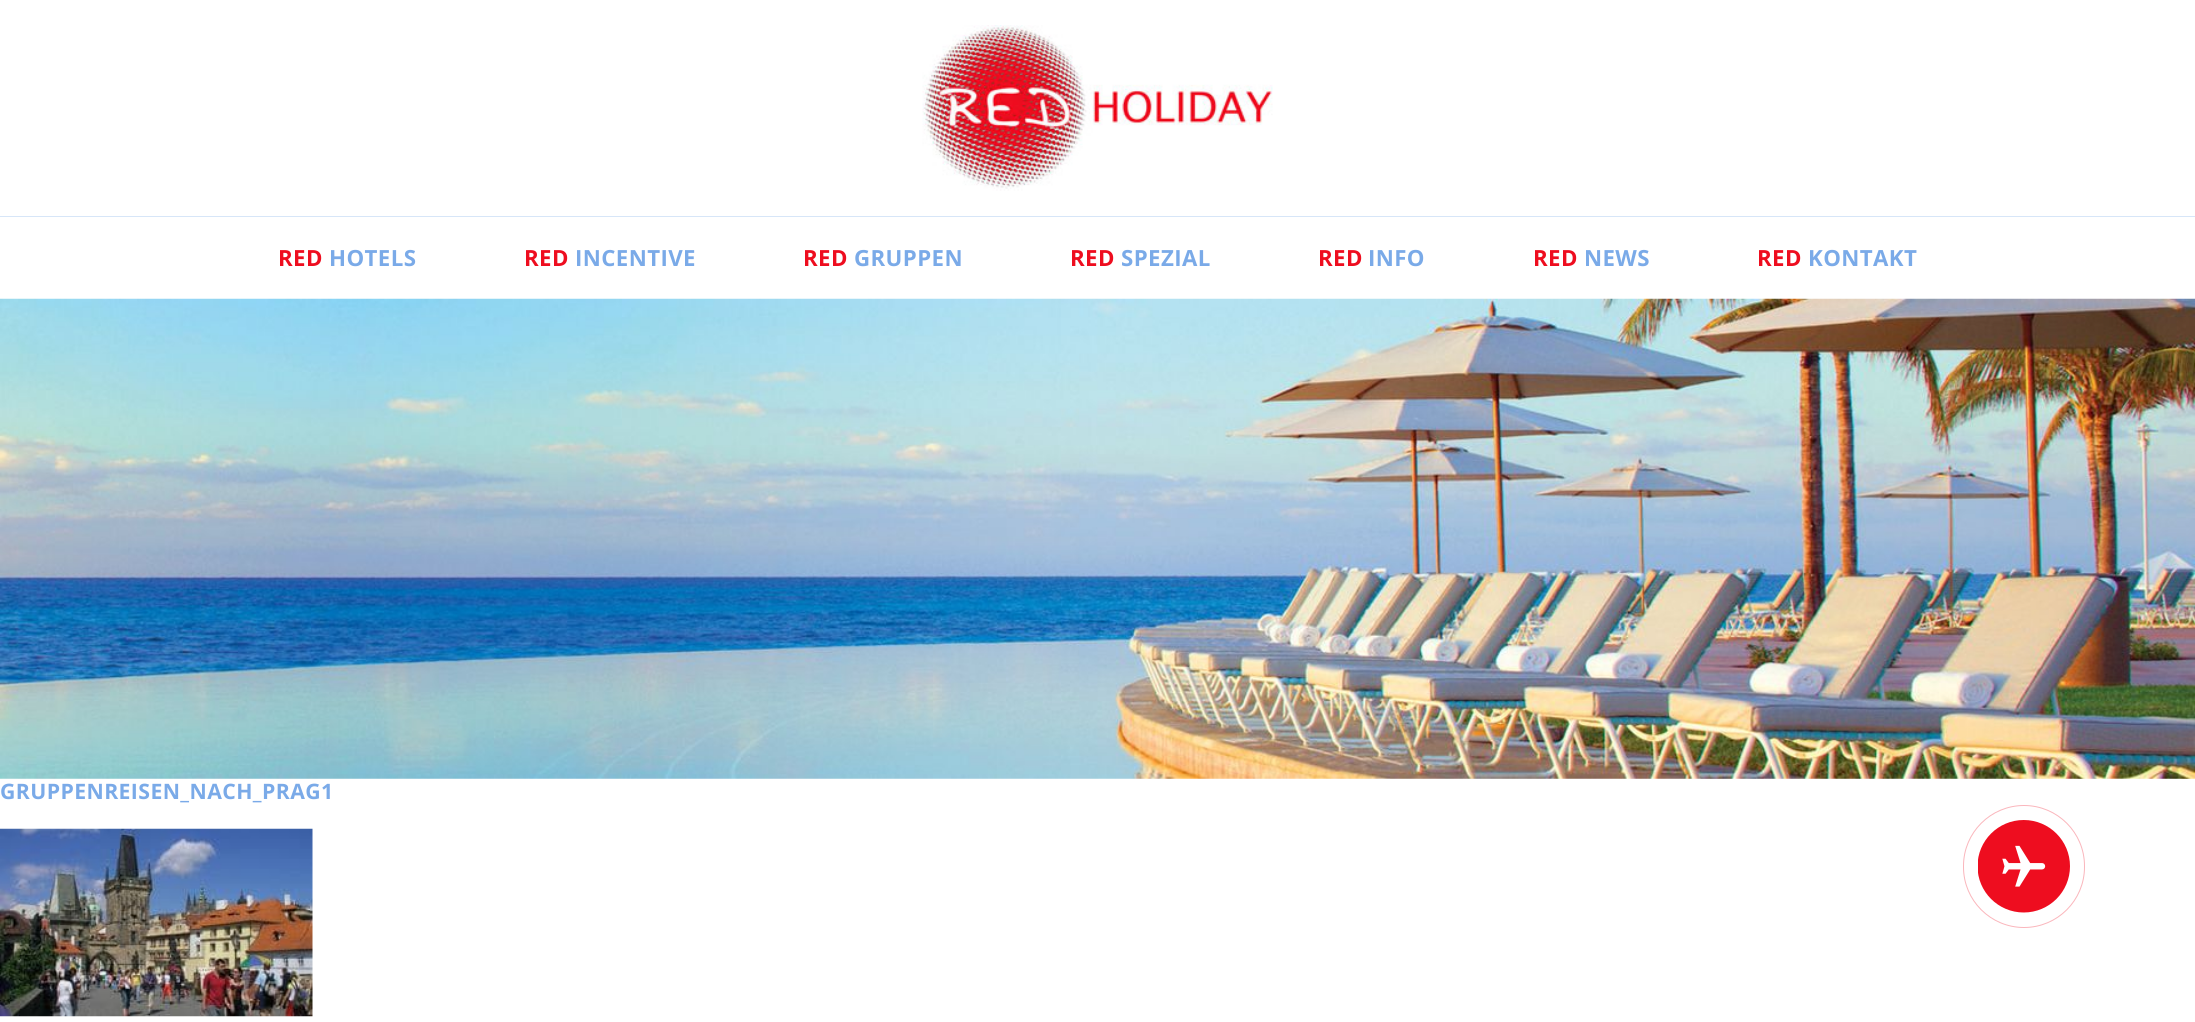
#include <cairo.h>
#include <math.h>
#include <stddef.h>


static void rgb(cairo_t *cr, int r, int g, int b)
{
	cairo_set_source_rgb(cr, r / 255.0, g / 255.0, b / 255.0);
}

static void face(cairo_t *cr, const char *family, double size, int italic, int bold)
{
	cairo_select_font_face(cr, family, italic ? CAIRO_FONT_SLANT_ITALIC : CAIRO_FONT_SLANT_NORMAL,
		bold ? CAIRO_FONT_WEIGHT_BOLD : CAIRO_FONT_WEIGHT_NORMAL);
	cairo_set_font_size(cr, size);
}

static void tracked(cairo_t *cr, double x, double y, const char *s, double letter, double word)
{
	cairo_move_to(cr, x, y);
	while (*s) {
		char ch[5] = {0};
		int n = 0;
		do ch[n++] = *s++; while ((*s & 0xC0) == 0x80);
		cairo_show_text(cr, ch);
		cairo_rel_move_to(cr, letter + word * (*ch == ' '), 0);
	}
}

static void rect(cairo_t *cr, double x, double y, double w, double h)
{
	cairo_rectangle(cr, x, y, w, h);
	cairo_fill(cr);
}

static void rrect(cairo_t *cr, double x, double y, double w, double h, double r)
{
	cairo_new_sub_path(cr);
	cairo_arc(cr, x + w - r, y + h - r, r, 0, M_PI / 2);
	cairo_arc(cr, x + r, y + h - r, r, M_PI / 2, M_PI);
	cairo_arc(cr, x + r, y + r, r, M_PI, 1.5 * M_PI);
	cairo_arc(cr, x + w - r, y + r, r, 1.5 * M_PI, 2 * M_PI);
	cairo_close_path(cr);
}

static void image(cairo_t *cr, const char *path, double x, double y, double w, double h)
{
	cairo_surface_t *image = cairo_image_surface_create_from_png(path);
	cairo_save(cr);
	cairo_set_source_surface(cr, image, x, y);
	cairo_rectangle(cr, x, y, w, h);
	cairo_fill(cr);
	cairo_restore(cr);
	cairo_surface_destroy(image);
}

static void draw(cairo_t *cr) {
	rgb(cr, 255, 255, 255);
	cairo_paint(cr);
	image(cr, "image0.png", 922, 25, 351, 166);
	rgb(cr, 215, 230, 248);
	rect(cr, 0, 216, 2195, 1);
	face(cr, "Open Sans", 22.25, 0, 1);
	rgb(cr, 238, 13, 31);
	tracked(cr, 278, 266, "RED", 0.4, 0);
	rgb(cr, 122, 170, 232);
	tracked(cr, 329, 266, "HOTELS", 0.4, 0);
	rgb(cr, 238, 13, 31);
	tracked(cr, 524, 266, "RED", 0.4, 0);
	rgb(cr, 122, 170, 232);
	tracked(cr, 575, 266, "INCENTIVE", 0.4, 0);
	rgb(cr, 238, 13, 31);
	tracked(cr, 803, 266, "RED", 0.4, 0);
	rgb(cr, 122, 170, 232);
	tracked(cr, 854, 266, "GRUPPEN", 0.4, 0);
	rgb(cr, 238, 13, 31);
	tracked(cr, 1070, 266, "RED", 0.4, 0);
	rgb(cr, 122, 170, 232);
	tracked(cr, 1121, 266, "SPEZIAL", 0.4, 0);
	rgb(cr, 238, 13, 31);
	tracked(cr, 1318, 266, "RED", 0.4, 0);
	rgb(cr, 122, 170, 232);
	tracked(cr, 1368, 266, "INFO", 0.4, 0);
	rgb(cr, 238, 13, 31);
	tracked(cr, 1533, 266, "RED", 0.4, 0);
	rgb(cr, 122, 170, 232);
	tracked(cr, 1584, 266, "NEWS", 0.4, 0);
	rgb(cr, 238, 13, 31);
	tracked(cr, 1757, 266, "RED", 0.4, 0);
	rgb(cr, 122, 170, 232);
	tracked(cr, 1808, 266, "KONTAKT", 0.4, 0);
	image(cr, "image1.png", 0, 298, 2195, 481);
	face(cr, "Open Sans", 21.25, 0, 1);
	tracked(cr, 0, 799, "GRUPPENREISEN_NACH_PRAG1", 0.4, 0);
	image(cr, "image2.png", 0, 828, 313, 189);
	rrect(cr, 1963.5, 805.5, 121, 122, 60.5);
	rgb(cr, 250, 182, 188);
	cairo_set_line_width(cr, 1);
	cairo_stroke(cr);
	image(cr, "image3.png", 1978, 820, 92, 93);
}

int main(void) {
	cairo_surface_t *surface = cairo_image_surface_create(CAIRO_FORMAT_RGB24, 2195, 1022);
	cairo_t *cr = cairo_create(surface);
	cairo_font_options_t *options = cairo_font_options_create();
	cairo_font_options_set_hint_metrics(options, CAIRO_HINT_METRICS_OFF);
	cairo_font_options_set_hint_style(options, CAIRO_HINT_STYLE_NONE);
	cairo_set_font_options(cr, options);
	cairo_set_miter_limit(cr, 4);
	draw(cr);
	cairo_surface_write_to_png(surface, "render.png");
	cairo_font_options_destroy(options);
	cairo_destroy(cr);
	cairo_surface_destroy(surface);
	return 0;
}
